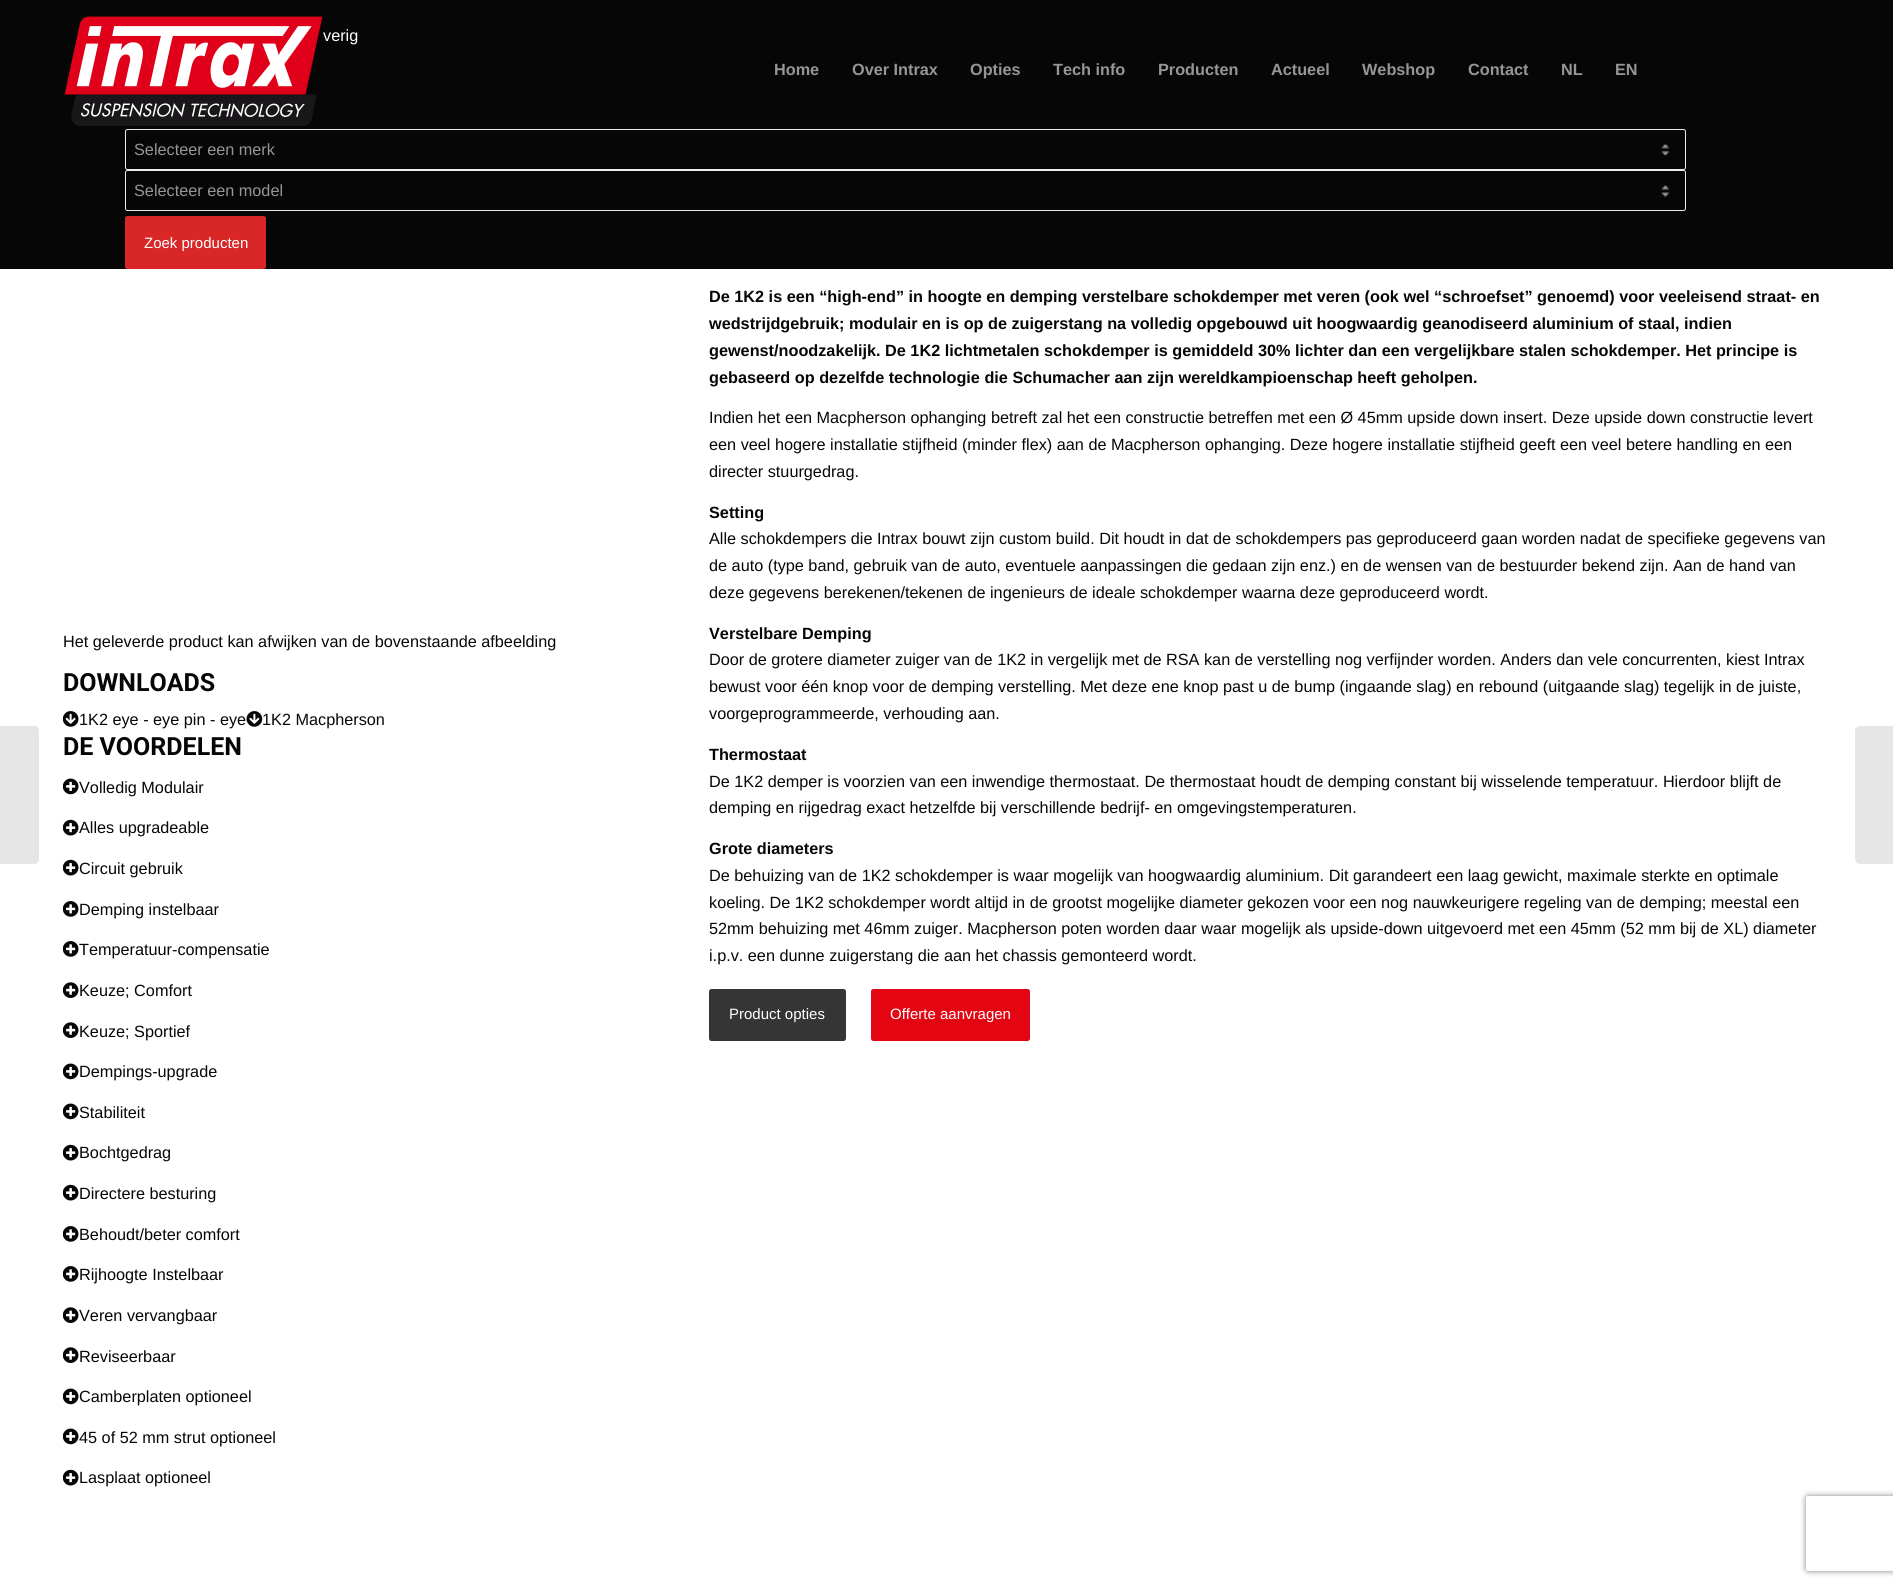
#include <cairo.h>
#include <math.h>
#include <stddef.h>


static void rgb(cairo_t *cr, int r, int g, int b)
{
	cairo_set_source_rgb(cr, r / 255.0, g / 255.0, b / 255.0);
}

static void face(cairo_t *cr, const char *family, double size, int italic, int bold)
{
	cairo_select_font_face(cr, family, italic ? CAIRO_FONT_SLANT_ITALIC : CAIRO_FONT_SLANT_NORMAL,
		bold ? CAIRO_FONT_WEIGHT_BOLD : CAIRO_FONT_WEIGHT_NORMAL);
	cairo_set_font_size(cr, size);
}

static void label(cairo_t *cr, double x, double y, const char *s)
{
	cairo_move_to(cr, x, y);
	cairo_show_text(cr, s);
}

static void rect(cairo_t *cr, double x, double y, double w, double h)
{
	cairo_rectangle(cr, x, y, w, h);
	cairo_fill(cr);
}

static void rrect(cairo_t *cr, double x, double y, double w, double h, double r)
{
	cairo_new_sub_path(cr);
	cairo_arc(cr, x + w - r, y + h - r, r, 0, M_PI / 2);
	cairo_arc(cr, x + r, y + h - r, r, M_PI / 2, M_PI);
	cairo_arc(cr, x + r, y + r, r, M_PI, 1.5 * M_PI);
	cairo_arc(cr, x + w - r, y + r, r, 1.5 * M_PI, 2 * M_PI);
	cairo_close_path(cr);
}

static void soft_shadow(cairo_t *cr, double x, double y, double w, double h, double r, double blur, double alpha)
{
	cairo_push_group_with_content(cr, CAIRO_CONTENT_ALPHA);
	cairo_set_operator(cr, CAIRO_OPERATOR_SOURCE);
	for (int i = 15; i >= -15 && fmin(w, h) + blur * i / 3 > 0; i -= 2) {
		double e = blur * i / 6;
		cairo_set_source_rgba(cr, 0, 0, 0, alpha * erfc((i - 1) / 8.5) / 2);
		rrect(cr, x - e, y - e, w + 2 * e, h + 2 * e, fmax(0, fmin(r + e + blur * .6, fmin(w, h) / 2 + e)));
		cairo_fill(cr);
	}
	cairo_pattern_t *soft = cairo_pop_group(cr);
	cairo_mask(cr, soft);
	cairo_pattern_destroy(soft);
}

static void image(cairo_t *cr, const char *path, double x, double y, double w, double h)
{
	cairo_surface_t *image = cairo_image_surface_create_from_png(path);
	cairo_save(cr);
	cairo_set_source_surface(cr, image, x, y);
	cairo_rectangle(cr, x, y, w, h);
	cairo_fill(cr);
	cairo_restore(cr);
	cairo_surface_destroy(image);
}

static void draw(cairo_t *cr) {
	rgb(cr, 255, 255, 255);
	cairo_paint(cr);
	rgb(cr, 6, 6, 6);
	rect(cr, 0, 0, 1893, 269);
	face(cr, "Liberation Sans", 16.25, 0, 0);
	rgb(cr, 255, 255, 255);
	label(cr, 323, 41, "verig");
	image(cr, "image0.png", 64, 16, 259, 110);
	image(cr, "image1.png", 1661, 143, 9, 14);
	rrect(cr, 125.5, 129.5, 1560, 40, 2);
	rgb(cr, 235, 235, 235);
	cairo_set_line_width(cr, 1);
	cairo_stroke(cr);
	rgb(cr, 150, 150, 150);
	label(cr, 134, 155, "Selecteer een merk");
	image(cr, "image2.png", 1661, 185, 9, 13);
	rrect(cr, 125.5, 170.5, 1560, 40, 2);
	rgb(cr, 235, 235, 235);
	cairo_stroke(cr);
	rgb(cr, 150, 150, 150);
	label(cr, 134, 196, "Selecteer een model");
	rgb(cr, 217, 39, 39);
	rrect(cr, 125, 216, 141, 53, 2.5);
	cairo_fill(cr);
	face(cr, "Liberation Sans", 15, 0, 0);
	rgb(cr, 255, 255, 255);
	label(cr, 144, 248, "Zoek producten");
	face(cr, "Liberation Sans", 16.25, 0, 1);
	rgb(cr, 150, 150, 150);
	label(cr, 774, 75, "Home");
	label(cr, 852, 75, "Over Intrax");
	label(cr, 970, 75, "Opties");
	label(cr, 1053, 75, "Tech info");
	label(cr, 1158, 75, "Producten");
	label(cr, 1271, 75, "Actueel");
	label(cr, 1362, 75, "Webshop");
	label(cr, 1468, 75, "Contact");
	label(cr, 1561, 75, "NL");
	label(cr, 1615, 75, "EN");
	rgb(cr, 230, 230, 230);
	cairo_new_path(cr);
	cairo_move_to(cr, 0, 726);
	cairo_line_to(cr, 34, 726);
	cairo_curve_to(cr, 37, 726, 39, 728, 39, 731);
	cairo_line_to(cr, 39, 859);
	cairo_curve_to(cr, 39, 862, 37, 864, 34, 864);
	cairo_line_to(cr, 0, 864);
	cairo_close_path(cr);
	cairo_fill(cr);
	face(cr, "Liberation Sans", 16.25, 0, 0);
	rgb(cr, 6, 6, 6);
	label(cr, 63, 647, "Het geleverde product kan afwijken van de bovenstaande afbeelding");
	face(cr, "Roboto", 25, 0, 1);
	label(cr, 63, 691, "DOWNLOADS");
	image(cr, "image3.png", 63, 711, 16, 16);
	face(cr, "Liberation Sans", 16.25, 0, 0);
	label(cr, 79, 725, "1K2 eye - eye pin - eye");
	image(cr, "image4.png", 246, 711, 17, 16);
	label(cr, 262, 725, "1K2 Macpherson");
	face(cr, "Roboto", 25, 0, 1);
	label(cr, 63, 755, "DE VOORDELEN");
	image(cr, "image5.png", 63, 778, 16, 17);
	face(cr, "Liberation Sans", 16.25, 0, 0);
	label(cr, 79, 793, "Volledig Modulair");
	image(cr, "image6.png", 63, 819, 16, 17);
	label(cr, 79, 833, "Alles upgradeable");
	image(cr, "image6.png", 63, 859, 16, 17);
	label(cr, 79, 874, "Circuit gebruik");
	image(cr, "image7.png", 63, 901, 16, 16);
	label(cr, 79, 915, "Demping instelbaar");
	image(cr, "image7.png", 63, 941, 16, 16);
	label(cr, 79, 955, "Temperatuur-compensatie");
	image(cr, "image8.png", 63, 982, 16, 16);
	label(cr, 79, 996, "Keuze; Comfort");
	image(cr, "image8.png", 63, 1022, 16, 16);
	label(cr, 79, 1037, "Keuze; Sportief");
	image(cr, "image5.png", 63, 1063, 16, 17);
	label(cr, 79, 1077, "Dempings-upgrade");
	image(cr, "image5.png", 63, 1103, 16, 17);
	label(cr, 79, 1118, "Stabiliteit");
	image(cr, "image6.png", 63, 1144, 16, 17);
	label(cr, 79, 1158, "Bochtgedrag");
	image(cr, "image6.png", 63, 1184, 16, 17);
	label(cr, 79, 1199, "Directere besturing");
	image(cr, "image7.png", 63, 1226, 16, 16);
	label(cr, 79, 1240, "Behoudt/beter comfort");
	image(cr, "image7.png", 63, 1266, 16, 16);
	label(cr, 79, 1280, "Rijhoogte Instelbaar");
	image(cr, "image8.png", 63, 1307, 16, 16);
	label(cr, 79, 1321, "Veren vervangbaar");
	image(cr, "image8.png", 63, 1347, 16, 16);
	label(cr, 79, 1362, "Reviseerbaar");
	image(cr, "image5.png", 63, 1388, 16, 17);
	label(cr, 79, 1402, "Camberplaten optioneel");
	image(cr, "image5.png", 63, 1428, 16, 17);
	label(cr, 79, 1443, "45 of 52 mm strut optioneel");
	image(cr, "image6.png", 63, 1469, 16, 17);
	label(cr, 79, 1483, "Lasplaat optioneel");
	face(cr, "Liberation Sans", 16.25, 0, 1);
	label(cr, 709, 302, "De 1K2 is een “high-end” in hoogte en demping verstelbare schokdemper met veren (ook wel “schroefset” genoemd) voor veeleisend straat- en");
	label(cr, 709, 329, "wedstrijdgebruik; modulair en is op de zuigerstang na volledig opgebouwd uit hoogwaardig geanodiseerd aluminium of staal, indien");
	label(cr, 709, 356, "gewenst/noodzakelijk. De 1K2 lichtmetalen schokdemper is gemiddeld 30% lichter dan een vergelijkbare stalen schokdemper. Het principe is");
	label(cr, 709, 383, "gebaseerd op dezelfde technologie die Schumacher aan zijn wereldkampioenschap heeft geholpen.");
	face(cr, "Liberation Sans", 16.25, 0, 0);
	label(cr, 709, 423, "Indien het een Macpherson ophanging betreft zal het een constructie betreffen met een Ø 45mm upside down insert. Deze upside down constructie levert");
	label(cr, 709, 450, "een veel hogere installatie stijfheid (minder flex) aan de Macpherson ophanging. Deze hogere installatie stijfheid geeft een veel betere handling en een");
	label(cr, 709, 477, "directer stuurgedrag.");
	face(cr, "Liberation Sans", 16.25, 0, 1);
	label(cr, 709, 518, "Setting");
	face(cr, "Liberation Sans", 16.25, 0, 0);
	label(cr, 709, 544, "Alle schokdempers die Intrax bouwt zijn custom build. Dit houdt in dat de schokdempers pas geproduceerd gaan worden nadat de specifieke gegevens van");
	label(cr, 709, 571, "de auto (type band, gebruik van de auto, eventuele aanpassingen die gedaan zijn enz.) en de wensen van de bestuurder bekend zijn. Aan de hand van");
	label(cr, 709, 598, "deze gegevens berekenen/tekenen de ingenieurs de ideale schokdemper waarna deze geproduceerd wordt.");
	face(cr, "Liberation Sans", 16.25, 0, 1);
	label(cr, 709, 639, "Verstelbare Demping");
	face(cr, "Liberation Sans", 16.25, 0, 0);
	label(cr, 709, 665, "Door de grotere diameter zuiger van de 1K2 in vergelijk met de RSA kan de verstelling nog verfijnder worden. Anders dan vele concurrenten, kiest Intrax");
	label(cr, 709, 692, "bewust voor één knop voor de demping verstelling. Met deze ene knop past u de bump (ingaande slag) en rebound (uitgaande slag) tegelijk in de juiste,");
	label(cr, 709, 719, "voorgeprogrammeerde, verhouding aan.");
	face(cr, "Liberation Sans", 16.25, 0, 1);
	label(cr, 709, 760, "Thermostaat");
	face(cr, "Liberation Sans", 16.25, 0, 0);
	label(cr, 709, 787, "De 1K2 demper is voorzien van een inwendige thermostaat. De thermostaat houdt de demping constant bij wisselende temperatuur. Hierdoor blijft de");
	label(cr, 709, 813, "demping en rijgedrag exact hetzelfde bij verschillende bedrijf- en omgevingstemperaturen.");
	face(cr, "Liberation Sans", 16.25, 0, 1);
	label(cr, 709, 854, "Grote diameters");
	face(cr, "Liberation Sans", 16.25, 0, 0);
	label(cr, 709, 881, "De behuizing van de 1K2 schokdemper is waar mogelijk van hoogwaardig aluminium. Dit garandeert een laag gewicht, maximale sterkte en optimale");
	label(cr, 709, 908, "koeling. De 1K2 schokdemper wordt altijd in de grootst mogelijke diameter gekozen voor een nog nauwkeurigere regeling van de demping; meestal een");
	label(cr, 709, 934, "52mm behuizing met 46mm zuiger. Macpherson poten worden daar waar mogelijk als upside-down uitgevoerd met een 45mm (52 mm bij de XL) diameter");
	label(cr, 709, 961, "i.p.v. een dunne zuigerstang die aan het chassis gemonteerd wordt.");
	rgb(cr, 53, 53, 53);
	rrect(cr, 709, 989, 137, 52, 2.5);
	cairo_fill(cr);
	face(cr, "Liberation Sans", 15, 0, 0);
	rgb(cr, 255, 255, 255);
	label(cr, 729, 1019, "Product opties");
	rgb(cr, 227, 6, 18);
	rrect(cr, 871, 989, 159, 52, 2.5);
	cairo_fill(cr);
	rgb(cr, 255, 255, 255);
	label(cr, 890, 1019, "Offerte aanvragen");
	rgb(cr, 230, 230, 230);
	cairo_new_path(cr);
	cairo_move_to(cr, 1860, 726);
	cairo_line_to(cr, 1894, 726);
	cairo_line_to(cr, 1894, 864);
	cairo_line_to(cr, 1860, 864);
	cairo_curve_to(cr, 1857, 864, 1855, 862, 1855, 859);
	cairo_line_to(cr, 1855, 731);
	cairo_curve_to(cr, 1855, 728, 1857, 726, 1860, 726);
	cairo_close_path(cr);
	cairo_fill(cr);
	cairo_save(cr);
	cairo_set_fill_rule(cr, CAIRO_FILL_RULE_EVEN_ODD);
	cairo_new_path(cr);
	cairo_move_to(cr, 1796, 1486);
	cairo_line_to(cr, 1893, 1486);
	cairo_line_to(cr, 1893, 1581);
	cairo_line_to(cr, 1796, 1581);
	cairo_close_path(cr);
	cairo_move_to(cr, 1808.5, 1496);
	cairo_line_to(cr, 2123.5, 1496);
	cairo_curve_to(cr, 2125, 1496, 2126, 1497, 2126, 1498.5);
	cairo_line_to(cr, 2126, 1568.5);
	cairo_curve_to(cr, 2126, 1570, 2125, 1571, 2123.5, 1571);
	cairo_line_to(cr, 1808.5, 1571);
	cairo_curve_to(cr, 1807, 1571, 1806, 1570, 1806, 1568.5);
	cairo_line_to(cr, 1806, 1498.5);
	cairo_curve_to(cr, 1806, 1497, 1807, 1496, 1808.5, 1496);
	cairo_close_path(cr);
	cairo_clip(cr);
	rgb(cr, 128, 128, 128);
	soft_shadow(cr, 1806, 1496, 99, 75, 2.5, 3, 1);
	cairo_restore(cr);
}

int main(void) {
	cairo_surface_t *surface = cairo_image_surface_create(CAIRO_FORMAT_RGB24, 1893, 1588);
	cairo_t *cr = cairo_create(surface);
	cairo_font_options_t *options = cairo_font_options_create();
	cairo_font_options_set_hint_metrics(options, CAIRO_HINT_METRICS_OFF);
	cairo_font_options_set_hint_style(options, CAIRO_HINT_STYLE_NONE);
	cairo_set_font_options(cr, options);
	cairo_set_miter_limit(cr, 4);
	draw(cr);
	cairo_surface_write_to_png(surface, "render.png");
	cairo_font_options_destroy(options);
	cairo_destroy(cr);
	cairo_surface_destroy(surface);
	return 0;
}
